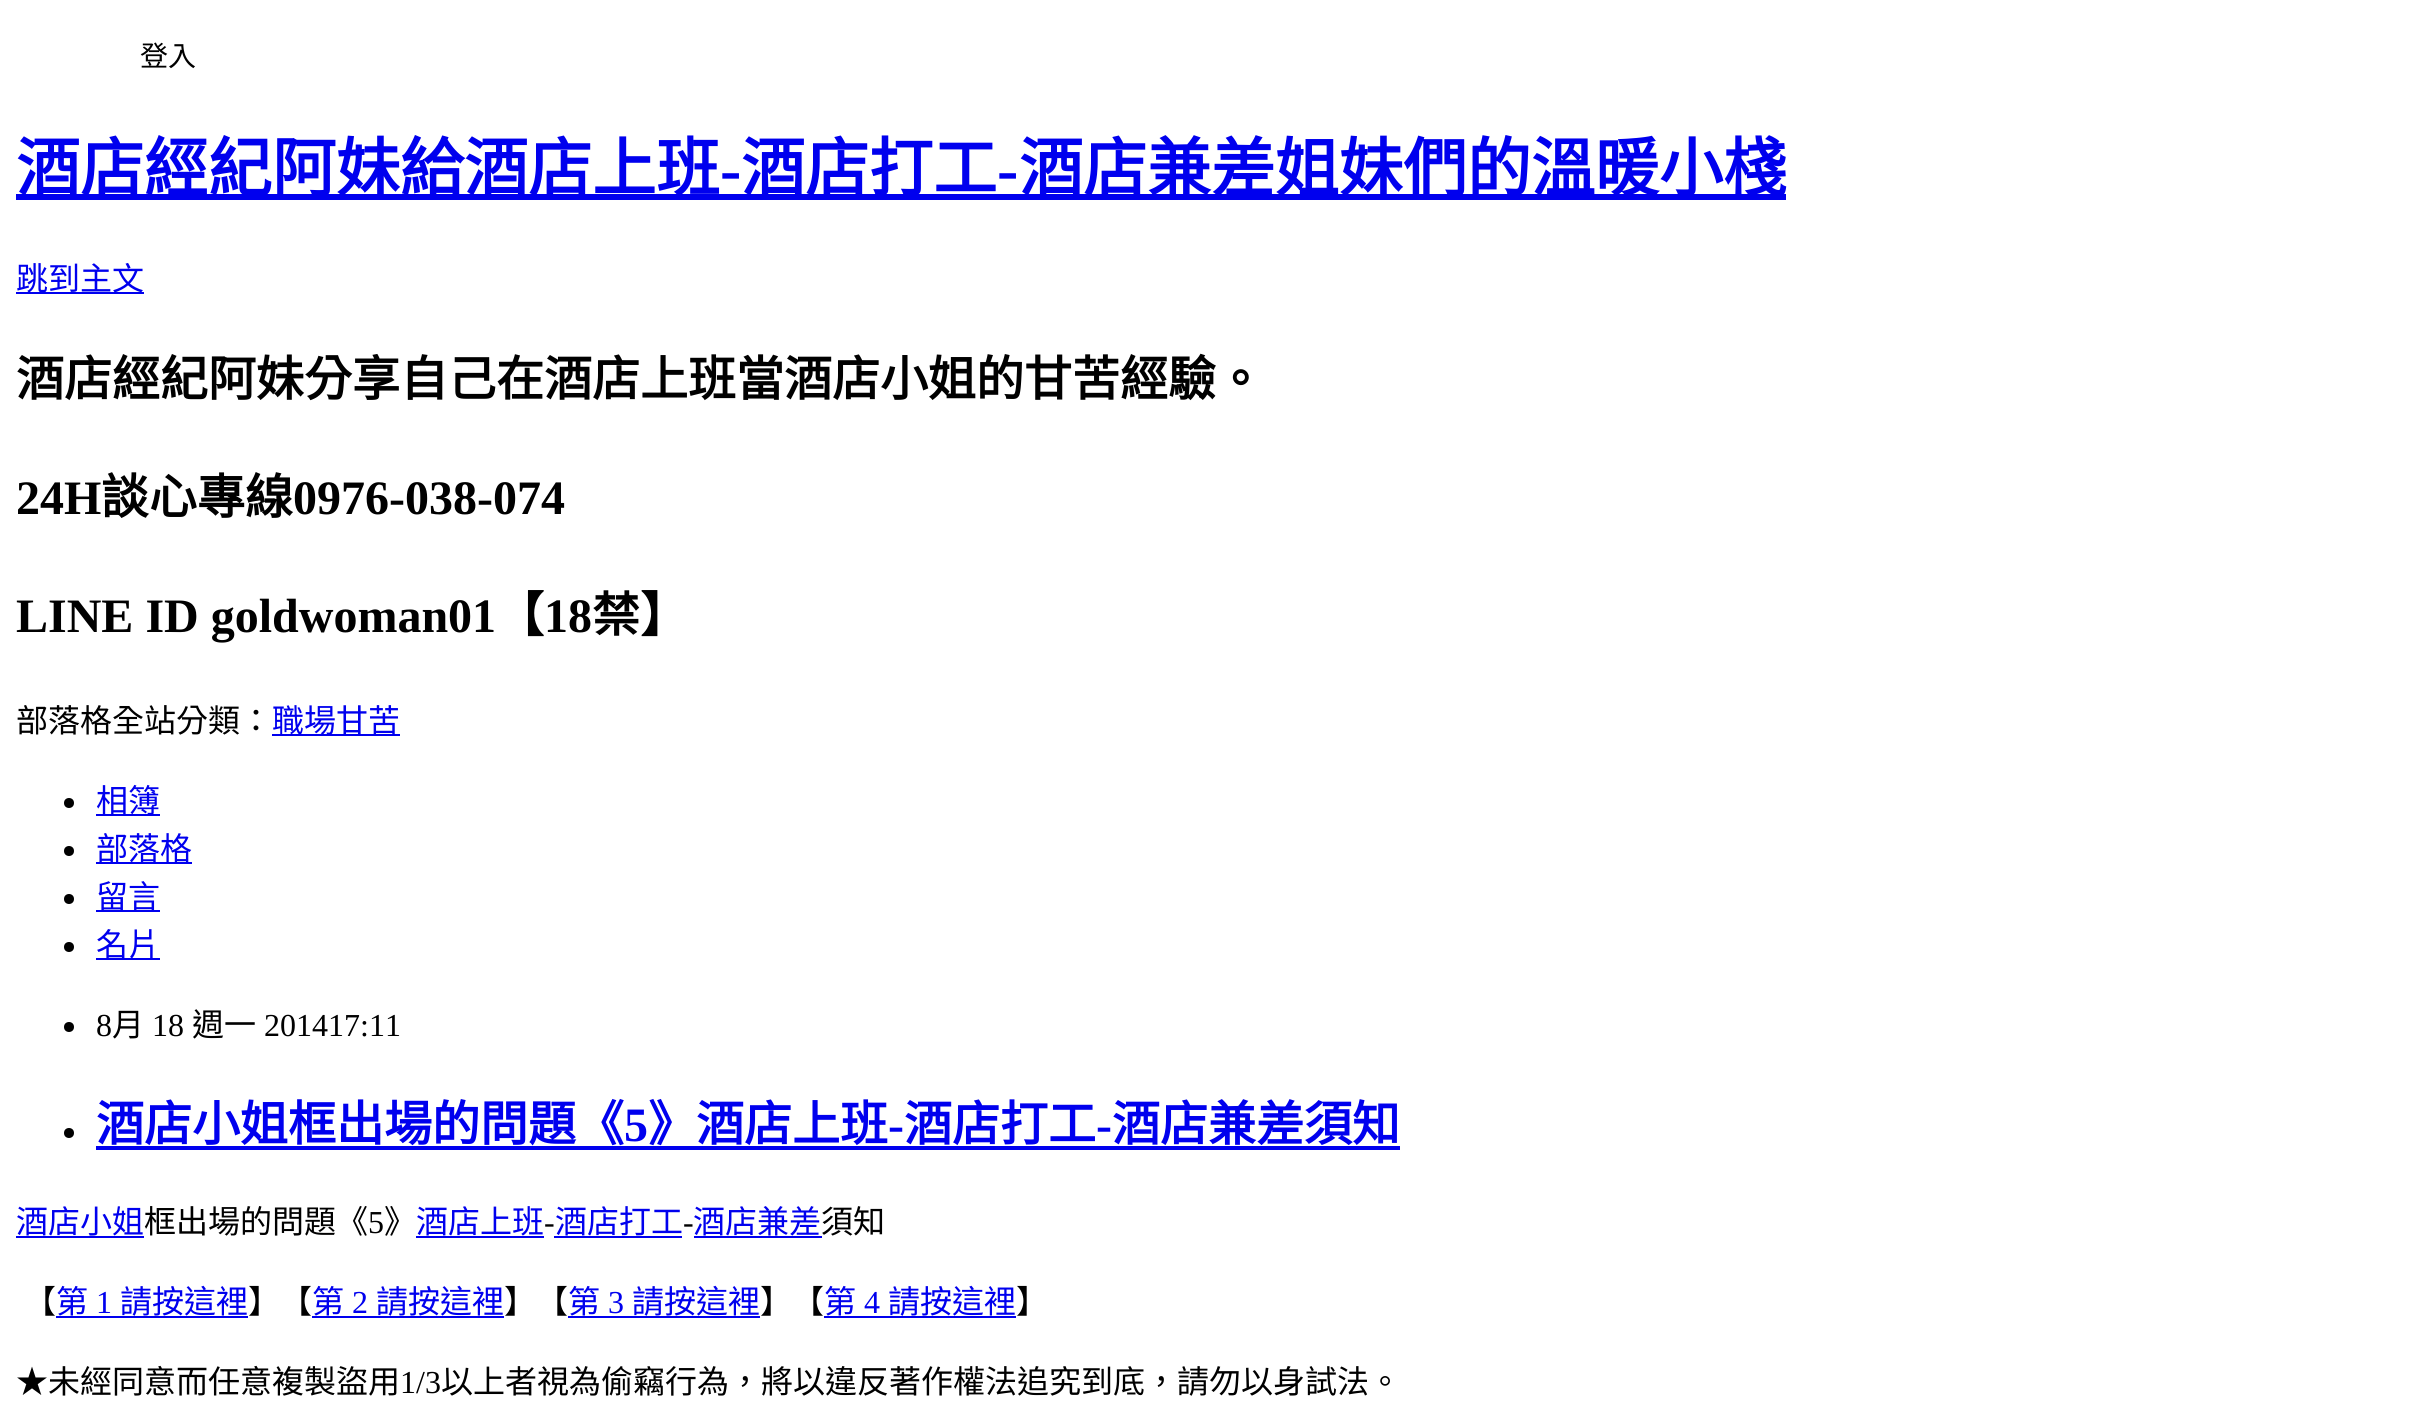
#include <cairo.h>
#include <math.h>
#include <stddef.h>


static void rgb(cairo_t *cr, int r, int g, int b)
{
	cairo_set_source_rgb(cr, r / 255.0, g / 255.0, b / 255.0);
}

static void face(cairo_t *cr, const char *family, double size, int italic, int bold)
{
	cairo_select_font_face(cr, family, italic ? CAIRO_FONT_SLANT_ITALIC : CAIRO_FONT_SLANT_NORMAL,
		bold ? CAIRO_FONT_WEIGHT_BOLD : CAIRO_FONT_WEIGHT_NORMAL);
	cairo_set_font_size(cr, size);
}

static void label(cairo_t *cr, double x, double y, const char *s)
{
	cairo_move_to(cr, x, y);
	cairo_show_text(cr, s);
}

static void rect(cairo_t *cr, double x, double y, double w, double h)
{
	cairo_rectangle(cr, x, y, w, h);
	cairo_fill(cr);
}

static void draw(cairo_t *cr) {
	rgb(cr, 255, 255, 255);
	cairo_paint(cr);
	face(cr, "Noto Sans CJK TC", 28, 0, 0);
	rgb(cr, 0, 0, 0);
	label(cr, 140, 66, "登入");
	rgb(cr, 0, 0, 238);
	rect(cr, 16, 194, 1770, 6);
	face(cr, "Noto Sans CJK TC", 64, 0, 1);
	label(cr, 16, 191, "酒店經紀阿妹給酒店上班");
	face(cr, "Liberation Serif", 64, 0, 1);
	label(cr, 720, 191, "-");
	face(cr, "Noto Sans CJK TC", 64, 0, 1);
	label(cr, 741, 191, "酒店打工");
	face(cr, "Liberation Serif", 64, 0, 1);
	label(cr, 997, 191, "-");
	face(cr, "Noto Sans CJK TC", 64, 0, 1);
	label(cr, 1019, 191, "酒店兼差姐妹們的溫暖小棧");
	rect(cr, 16, 292, 128, 2);
	face(cr, "Noto Sans CJK TC", 32, 0, 0);
	label(cr, 16, 290, "跳到主文");
	face(cr, "Noto Sans CJK TC", 48, 0, 1);
	rgb(cr, 0, 0, 0);
	label(cr, 16, 396, "酒店經紀阿妹分享自己在酒店上班當酒店小姐的甘苦經驗。");
	face(cr, "Liberation Serif", 48, 0, 1);
	label(cr, 16, 514, "24H");
	face(cr, "Noto Sans CJK TC", 48, 0, 1);
	label(cr, 101, 514, "談心專線");
	face(cr, "Liberation Serif", 48, 0, 1);
	label(cr, 293, 514, "0976-038-074");
	label(cr, 16, 632, "LINE ID goldwoman01");
	face(cr, "Noto Sans CJK TC", 48, 0, 1);
	label(cr, 496, 632, "【");
	face(cr, "Liberation Serif", 48, 0, 1);
	label(cr, 544, 632, "18");
	face(cr, "Noto Sans CJK TC", 48, 0, 1);
	label(cr, 592, 632, "禁】");
	face(cr, "Noto Sans CJK TC", 32, 0, 0);
	label(cr, 16, 732, "部落格全站分類：");
	rgb(cr, 0, 0, 238);
	rect(cr, 272, 734, 128, 2);
	label(cr, 272, 732, "職場甘苦");
	rgb(cr, 0, 0, 0);
	cairo_new_path(cr);
	cairo_arc(cr, 69, 803, 5, 0, 2 * M_PI);
	cairo_fill(cr);
	rgb(cr, 0, 0, 238);
	rect(cr, 96, 814, 64, 2);
	label(cr, 96, 812, "相簿");
	rgb(cr, 0, 0, 0);
	cairo_new_path(cr);
	cairo_arc(cr, 69, 851, 5, 0, 2 * M_PI);
	cairo_fill(cr);
	rgb(cr, 0, 0, 238);
	rect(cr, 96, 862, 96, 2);
	label(cr, 96, 860, "部落格");
	rgb(cr, 0, 0, 0);
	cairo_new_path(cr);
	cairo_arc(cr, 69, 899, 5, 0, 2 * M_PI);
	cairo_fill(cr);
	rgb(cr, 0, 0, 238);
	rect(cr, 96, 910, 64, 2);
	label(cr, 96, 908, "留言");
	rgb(cr, 0, 0, 0);
	cairo_new_path(cr);
	cairo_arc(cr, 69, 947, 5, 0, 2 * M_PI);
	cairo_fill(cr);
	rgb(cr, 0, 0, 238);
	rect(cr, 96, 958, 64, 2);
	label(cr, 96, 956, "名片");
	rgb(cr, 0, 0, 0);
	cairo_new_path(cr);
	cairo_arc(cr, 69, 1027, 5, 0, 2 * M_PI);
	cairo_fill(cr);
	face(cr, "Liberation Serif", 32, 0, 0);
	label(cr, 96, 1036, "8");
	face(cr, "Noto Sans CJK TC", 32, 0, 0);
	label(cr, 112, 1036, "月");
	face(cr, "Liberation Serif", 32, 0, 0);
	label(cr, 152, 1036, "18");
	face(cr, "Noto Sans CJK TC", 32, 0, 0);
	label(cr, 192, 1036, "週一");
	face(cr, "Liberation Serif", 32, 0, 0);
	label(cr, 264, 1036, "201417:11");
	cairo_new_path(cr);
	cairo_arc(cr, 69, 1133, 5, 0, 2 * M_PI);
	cairo_fill(cr);
	face(cr, "Noto Sans CJK TC", 48, 0, 1);
	rgb(cr, 0, 0, 238);
	label(cr, 96, 1141, "酒店小姐框出場的問題《");
	face(cr, "Liberation Serif", 48, 0, 1);
	label(cr, 624, 1141, "5");
	face(cr, "Noto Sans CJK TC", 48, 0, 1);
	label(cr, 648, 1141, "》酒店上班");
	face(cr, "Liberation Serif", 48, 0, 1);
	label(cr, 888, 1141, "-");
	rect(cr, 96, 1146, 1304, 4);
	face(cr, "Noto Sans CJK TC", 48, 0, 1);
	label(cr, 904, 1141, "酒店打工");
	face(cr, "Liberation Serif", 48, 0, 1);
	label(cr, 1096, 1141, "-");
	face(cr, "Noto Sans CJK TC", 48, 0, 1);
	label(cr, 1112, 1141, "酒店兼差須知");
	face(cr, "Noto Sans CJK TC", 32, 0, 0);
	label(cr, 16, 1233, "酒店小姐");
	rect(cr, 16, 1236, 128, 2);
	rgb(cr, 0, 0, 0);
	label(cr, 144, 1233, "框出場的問題《");
	face(cr, "Liberation Serif", 32, 0, 0);
	label(cr, 368, 1233, "5");
	face(cr, "Noto Sans CJK TC", 32, 0, 0);
	label(cr, 384, 1233, "》");
	rgb(cr, 0, 0, 238);
	label(cr, 416, 1233, "酒店上班");
	face(cr, "Liberation Serif", 32, 0, 0);
	rgb(cr, 0, 0, 0);
	label(cr, 544, 1233, "-");
	rgb(cr, 0, 0, 238);
	rect(cr, 416, 1236, 128, 2);
	rect(cr, 554, 1236, 128, 2);
	face(cr, "Noto Sans CJK TC", 32, 0, 0);
	label(cr, 555, 1233, "酒店打工");
	face(cr, "Liberation Serif", 32, 0, 0);
	rgb(cr, 0, 0, 0);
	label(cr, 683, 1233, "-");
	rgb(cr, 0, 0, 238);
	rect(cr, 694, 1236, 128, 2);
	face(cr, "Noto Sans CJK TC", 32, 0, 0);
	label(cr, 693, 1233, "酒店兼差");
	rgb(cr, 0, 0, 0);
	label(cr, 821, 1233, "須知");
	label(cr, 24, 1313, "【");
	rgb(cr, 0, 0, 238);
	label(cr, 56, 1313, "第");
	face(cr, "Liberation Serif", 32, 0, 0);
	label(cr, 96, 1313, "1");
	rect(cr, 56, 1316, 192, 2);
	face(cr, "Noto Sans CJK TC", 32, 0, 0);
	label(cr, 120, 1313, "請按這裡");
	rgb(cr, 0, 0, 0);
	label(cr, 248, 1313, "】【");
	rgb(cr, 0, 0, 238);
	label(cr, 312, 1313, "第");
	face(cr, "Liberation Serif", 32, 0, 0);
	label(cr, 352, 1313, "2");
	rect(cr, 312, 1316, 192, 2);
	face(cr, "Noto Sans CJK TC", 32, 0, 0);
	label(cr, 376, 1313, "請按這裡");
	rgb(cr, 0, 0, 0);
	label(cr, 504, 1313, "】【");
	rgb(cr, 0, 0, 238);
	label(cr, 568, 1313, "第");
	face(cr, "Liberation Serif", 32, 0, 0);
	label(cr, 608, 1313, "3");
	rect(cr, 568, 1316, 192, 2);
	face(cr, "Noto Sans CJK TC", 32, 0, 0);
	label(cr, 632, 1313, "請按這裡");
	rgb(cr, 0, 0, 0);
	label(cr, 760, 1313, "】【");
	rgb(cr, 0, 0, 238);
	label(cr, 824, 1313, "第");
	face(cr, "Liberation Serif", 32, 0, 0);
	label(cr, 864, 1313, "4");
	rect(cr, 824, 1316, 192, 2);
	face(cr, "Noto Sans CJK TC", 32, 0, 0);
	label(cr, 888, 1313, "請按這裡");
	rgb(cr, 0, 0, 0);
	label(cr, 1016, 1313, "】");
	label(cr, 16, 1393, "★未經同意而任意複製盜用");
	face(cr, "Liberation Serif", 32, 0, 0);
	label(cr, 400, 1393, "1/3");
	face(cr, "Noto Sans CJK TC", 32, 0, 0);
	label(cr, 441, 1393, "以上者視為偷竊行為，將以違反著作權法追究到底，請勿以身試法。");
}

int main(void) {
	cairo_surface_t *surface = cairo_image_surface_create(CAIRO_FORMAT_RGB24, 2436, 1408);
	cairo_t *cr = cairo_create(surface);
	cairo_font_options_t *options = cairo_font_options_create();
	cairo_font_options_set_hint_metrics(options, CAIRO_HINT_METRICS_OFF);
	cairo_font_options_set_hint_style(options, CAIRO_HINT_STYLE_NONE);
	cairo_set_font_options(cr, options);
	cairo_set_miter_limit(cr, 4);
	draw(cr);
	cairo_surface_write_to_png(surface, "render.png");
	cairo_font_options_destroy(options);
	cairo_destroy(cr);
	cairo_surface_destroy(surface);
	return 0;
}
